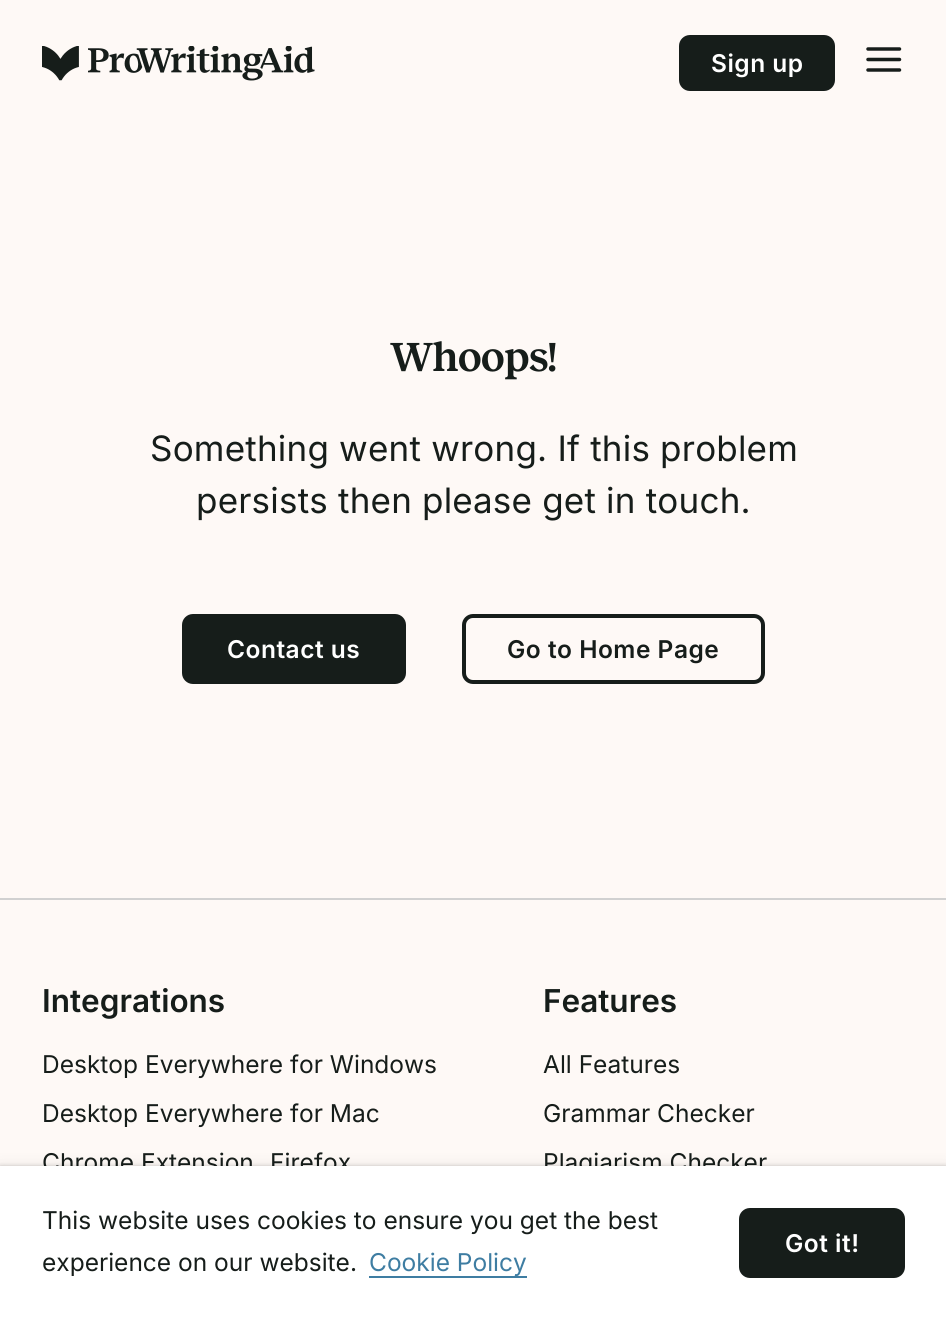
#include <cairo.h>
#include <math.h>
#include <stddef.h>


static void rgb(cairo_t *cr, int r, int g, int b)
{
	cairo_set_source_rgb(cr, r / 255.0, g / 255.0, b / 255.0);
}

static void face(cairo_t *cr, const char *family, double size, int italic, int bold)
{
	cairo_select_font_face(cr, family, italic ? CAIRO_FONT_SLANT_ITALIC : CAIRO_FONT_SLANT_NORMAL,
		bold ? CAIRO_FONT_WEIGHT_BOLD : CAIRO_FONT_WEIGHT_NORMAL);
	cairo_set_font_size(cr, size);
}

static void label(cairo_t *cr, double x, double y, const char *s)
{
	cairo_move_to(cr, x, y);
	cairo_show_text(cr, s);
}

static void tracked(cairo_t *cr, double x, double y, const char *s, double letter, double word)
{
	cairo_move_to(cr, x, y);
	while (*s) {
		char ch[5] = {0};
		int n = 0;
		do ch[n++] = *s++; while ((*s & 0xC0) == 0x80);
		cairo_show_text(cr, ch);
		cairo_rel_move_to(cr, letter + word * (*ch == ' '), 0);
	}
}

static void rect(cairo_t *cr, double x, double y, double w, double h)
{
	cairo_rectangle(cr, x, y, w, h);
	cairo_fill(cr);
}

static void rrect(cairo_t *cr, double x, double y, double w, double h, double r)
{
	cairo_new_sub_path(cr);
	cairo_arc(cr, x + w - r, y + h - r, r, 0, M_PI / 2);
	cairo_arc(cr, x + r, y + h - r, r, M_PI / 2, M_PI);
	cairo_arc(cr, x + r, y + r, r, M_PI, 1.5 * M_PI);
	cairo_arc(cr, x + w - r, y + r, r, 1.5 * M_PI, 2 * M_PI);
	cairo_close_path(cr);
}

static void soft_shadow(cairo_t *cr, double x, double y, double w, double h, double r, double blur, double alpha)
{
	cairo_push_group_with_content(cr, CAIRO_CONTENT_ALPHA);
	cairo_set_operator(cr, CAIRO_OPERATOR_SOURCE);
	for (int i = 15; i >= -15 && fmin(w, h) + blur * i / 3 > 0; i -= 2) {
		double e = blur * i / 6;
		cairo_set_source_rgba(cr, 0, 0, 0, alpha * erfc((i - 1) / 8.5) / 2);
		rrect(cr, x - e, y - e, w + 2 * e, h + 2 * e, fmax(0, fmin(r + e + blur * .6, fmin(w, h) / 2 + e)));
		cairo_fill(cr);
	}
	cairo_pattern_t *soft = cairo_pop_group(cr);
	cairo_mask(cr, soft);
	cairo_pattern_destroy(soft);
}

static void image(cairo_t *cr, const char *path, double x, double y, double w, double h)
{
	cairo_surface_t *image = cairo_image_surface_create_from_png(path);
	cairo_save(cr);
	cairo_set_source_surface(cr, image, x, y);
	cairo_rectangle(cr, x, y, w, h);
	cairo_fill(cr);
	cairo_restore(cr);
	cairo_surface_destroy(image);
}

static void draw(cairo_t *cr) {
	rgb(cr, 254, 249, 246);
	cairo_paint(cr);
	image(cr, "image0.png", 42, 46, 37, 35);
	image(cr, "image1.png", 88, 46, 227, 35);
	rgb(cr, 22, 29, 26);
	rrect(cr, 679, 35, 156, 56, 11);
	cairo_fill(cr);
	face(cr, "Inter SemiBold", 24.5, 0, 0);
	rgb(cr, 255, 255, 255);
	tracked(cr, 711, 72, "Sign up", 0.5, 0);
	cairo_new_path(cr);
	cairo_move_to(cr, 868, 59.5);
	cairo_line_to(cr, 899.5, 59.5);
	cairo_move_to(cr, 868, 49);
	cairo_line_to(cr, 899.5, 49);
	cairo_move_to(cr, 868, 70);
	cairo_line_to(cr, 899.5, 70);
	rgb(cr, 22, 29, 26);
	cairo_set_line_width(cr, 3.5);
	cairo_set_line_cap(cr, CAIRO_LINE_CAP_ROUND);
	cairo_set_line_join(cr, CAIRO_LINE_JOIN_ROUND);
	cairo_stroke(cr);
	face(cr, "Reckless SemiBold", 42, 0, 0);
	tracked(cr, 390, 371, "Whoops!", -0.5, 0);
	face(cr, "Inter", 35, 0, 0);
	tracked(cr, 150, 461, "Something went wrong. If this problem", 0.2, 0);
	tracked(cr, 196, 513, "persists then please get in touch.", 0.2, 0);
	rrect(cr, 182, 614, 224, 70, 11);
	cairo_fill(cr);
	face(cr, "Inter SemiBold", 24.5, 0, 0);
	rgb(cr, 255, 255, 255);
	tracked(cr, 227, 658, "Contact us", 0.5, 0);
	rrect(cr, 464, 616, 299, 66, 9);
	rgb(cr, 22, 29, 26);
	cairo_set_line_width(cr, 4);
	cairo_set_line_cap(cr, CAIRO_LINE_CAP_BUTT);
	cairo_set_line_join(cr, CAIRO_LINE_JOIN_MITER);
	cairo_stroke(cr);
	tracked(cr, 507, 658, "Go to Home Page", 0.5, 0);
	rgb(cr, 209, 209, 209);
	rect(cr, 0, 898, 946, 2);
	face(cr, "Inter SemiBold", 31.5, 0, 0);
	rgb(cr, 22, 29, 26);
	label(cr, 42, 1012, "Integrations");
	face(cr, "Inter", 24.5, 0, 0);
	label(cr, 42, 1073, "Desktop Everywhere for Windows");
	label(cr, 42, 1122, "Desktop Everywhere for Mac");
	label(cr, 42, 1171, "Chrome Extension");
	label(cr, 270, 1171, "Firefox");
	face(cr, "Inter SemiBold", 31.5, 0, 0);
	label(cr, 543, 1012, "Features");
	face(cr, "Inter", 24.5, 0, 0);
	label(cr, 543, 1073, "All Features");
	label(cr, 543, 1122, "Grammar Checker");
	label(cr, 543, 1171, "Plagiarism Checker");
	rgb(cr, 0, 0, 0);
	soft_shadow(cr, 0, 1169, 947, 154, 0, 9, 0.1);
	soft_shadow(cr, 0, 1166, 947, 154, 0, 2, 0.2);
	rgb(cr, 255, 255, 255);
	rect(cr, 0, 1166, 946, 152);
	rgb(cr, 22, 29, 26);
	label(cr, 42, 1229, "This website uses cookies to ensure you get the best");
	label(cr, 42, 1271, "experience on our website.");
	rgb(cr, 62, 125, 162);
	rect(cr, 369, 1276, 158, 2);
	label(cr, 369, 1271, "Cookie Policy");
	rgb(cr, 22, 29, 26);
	rrect(cr, 739, 1208, 166, 70, 11);
	cairo_fill(cr);
	face(cr, "Inter SemiBold", 24.5, 0, 0);
	rgb(cr, 255, 255, 255);
	tracked(cr, 785, 1252, "Got it!", 0.5, 0);
}

int main(void) {
	cairo_surface_t *surface = cairo_image_surface_create(CAIRO_FORMAT_RGB24, 946, 1318);
	cairo_t *cr = cairo_create(surface);
	cairo_font_options_t *options = cairo_font_options_create();
	cairo_font_options_set_hint_metrics(options, CAIRO_HINT_METRICS_OFF);
	cairo_font_options_set_hint_style(options, CAIRO_HINT_STYLE_NONE);
	cairo_set_font_options(cr, options);
	cairo_set_miter_limit(cr, 4);
	draw(cr);
	cairo_surface_write_to_png(surface, "render.png");
	cairo_font_options_destroy(options);
	cairo_destroy(cr);
	cairo_surface_destroy(surface);
	return 0;
}
